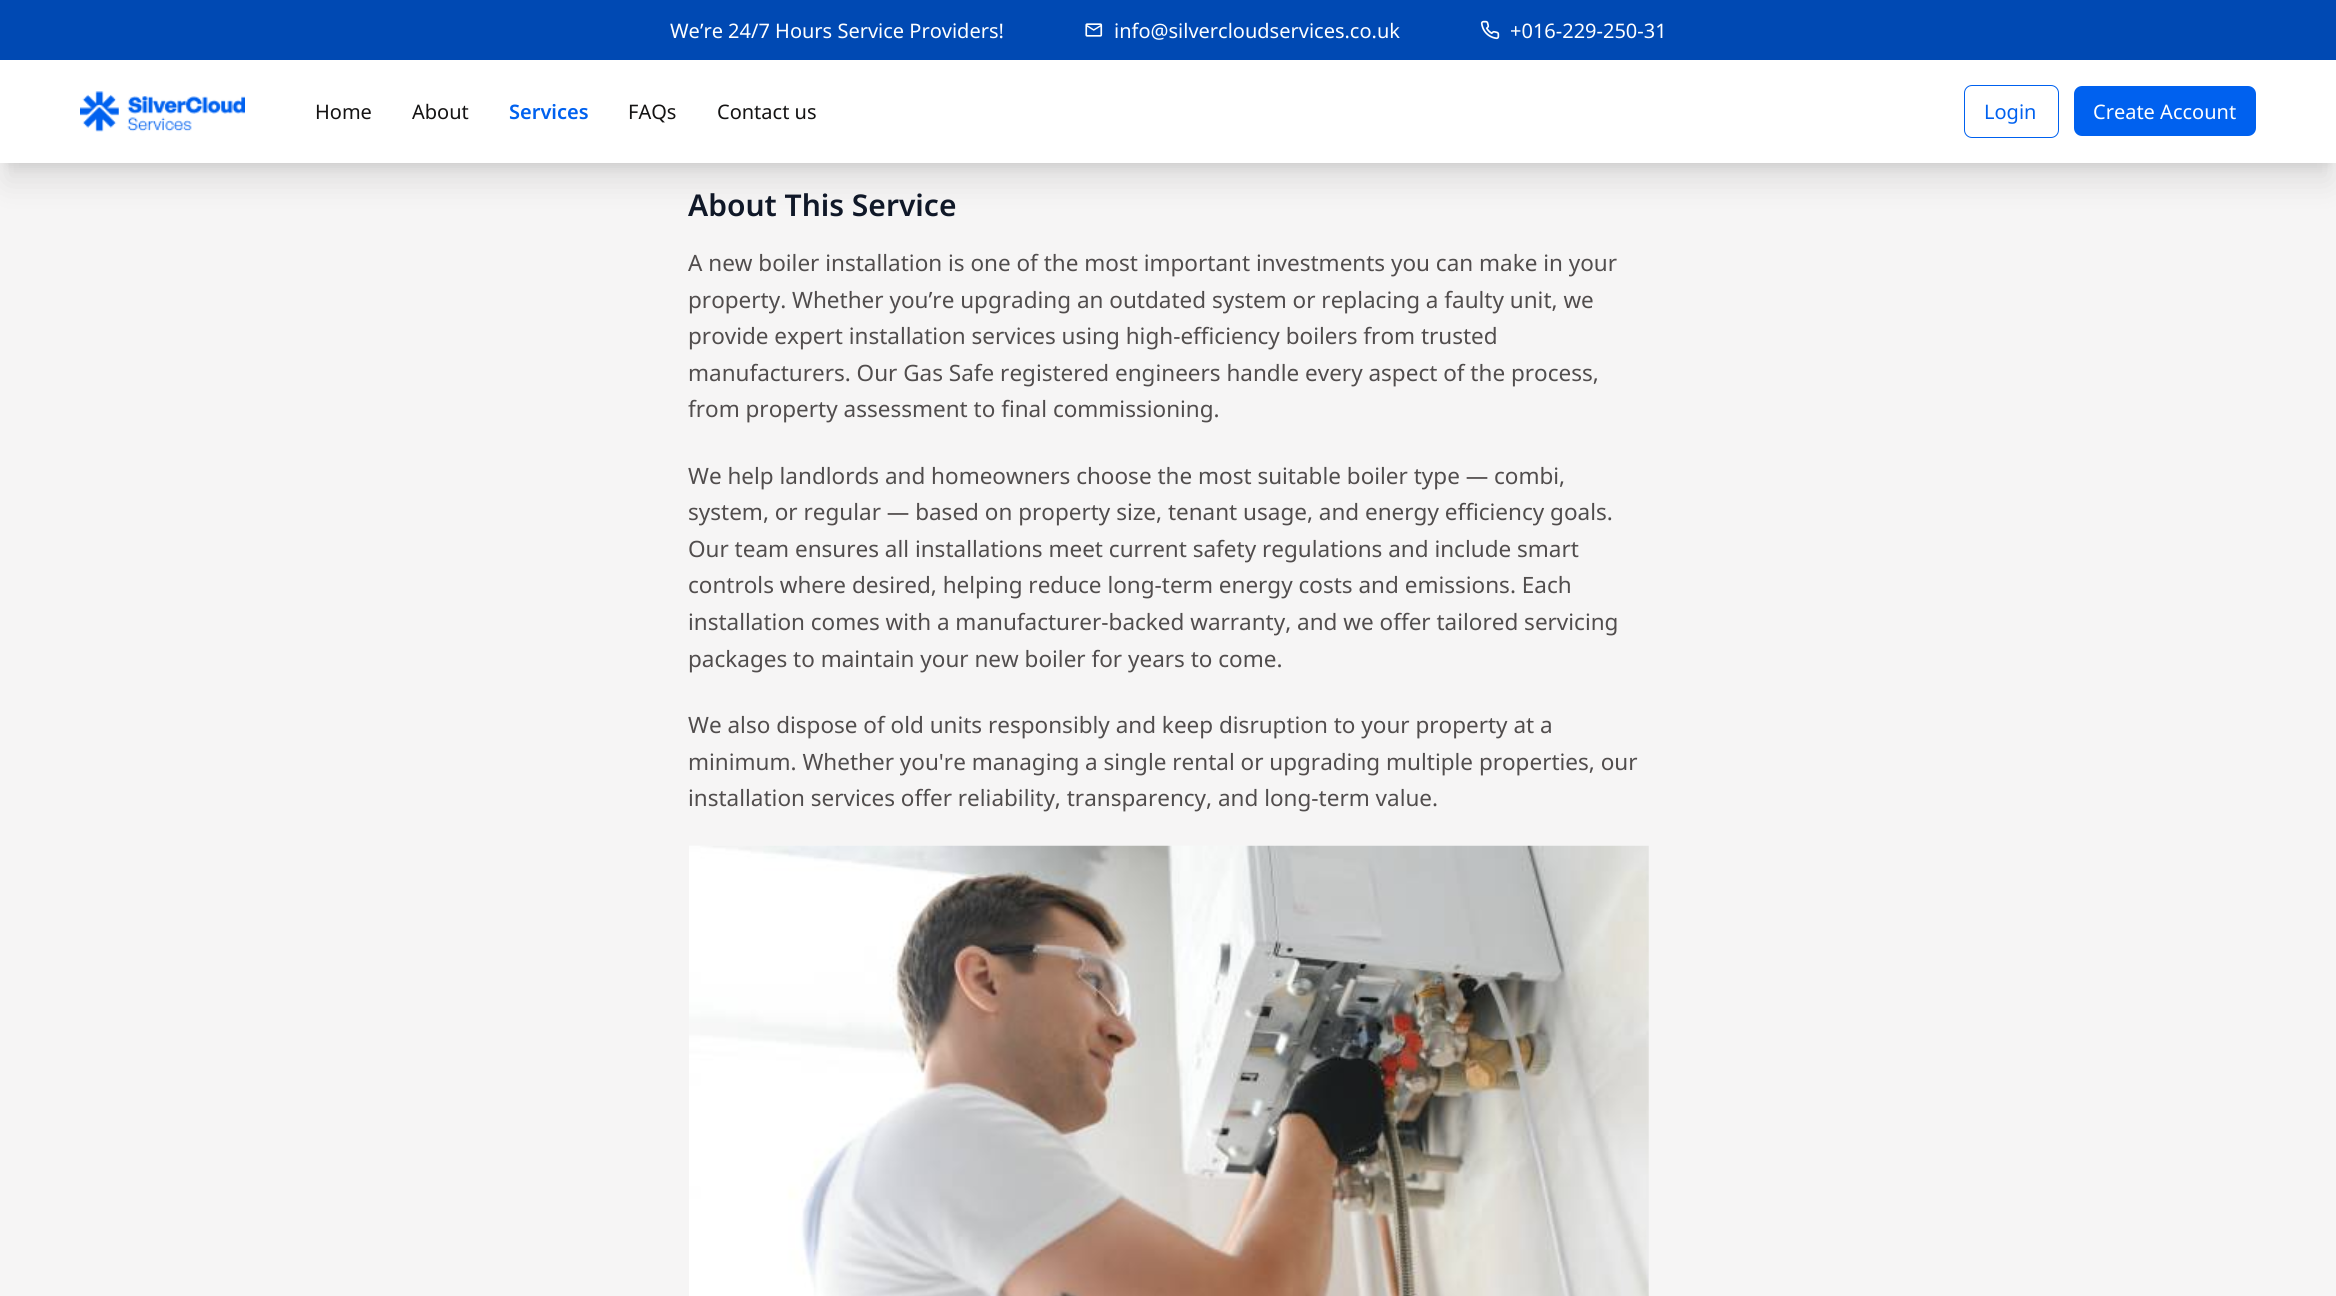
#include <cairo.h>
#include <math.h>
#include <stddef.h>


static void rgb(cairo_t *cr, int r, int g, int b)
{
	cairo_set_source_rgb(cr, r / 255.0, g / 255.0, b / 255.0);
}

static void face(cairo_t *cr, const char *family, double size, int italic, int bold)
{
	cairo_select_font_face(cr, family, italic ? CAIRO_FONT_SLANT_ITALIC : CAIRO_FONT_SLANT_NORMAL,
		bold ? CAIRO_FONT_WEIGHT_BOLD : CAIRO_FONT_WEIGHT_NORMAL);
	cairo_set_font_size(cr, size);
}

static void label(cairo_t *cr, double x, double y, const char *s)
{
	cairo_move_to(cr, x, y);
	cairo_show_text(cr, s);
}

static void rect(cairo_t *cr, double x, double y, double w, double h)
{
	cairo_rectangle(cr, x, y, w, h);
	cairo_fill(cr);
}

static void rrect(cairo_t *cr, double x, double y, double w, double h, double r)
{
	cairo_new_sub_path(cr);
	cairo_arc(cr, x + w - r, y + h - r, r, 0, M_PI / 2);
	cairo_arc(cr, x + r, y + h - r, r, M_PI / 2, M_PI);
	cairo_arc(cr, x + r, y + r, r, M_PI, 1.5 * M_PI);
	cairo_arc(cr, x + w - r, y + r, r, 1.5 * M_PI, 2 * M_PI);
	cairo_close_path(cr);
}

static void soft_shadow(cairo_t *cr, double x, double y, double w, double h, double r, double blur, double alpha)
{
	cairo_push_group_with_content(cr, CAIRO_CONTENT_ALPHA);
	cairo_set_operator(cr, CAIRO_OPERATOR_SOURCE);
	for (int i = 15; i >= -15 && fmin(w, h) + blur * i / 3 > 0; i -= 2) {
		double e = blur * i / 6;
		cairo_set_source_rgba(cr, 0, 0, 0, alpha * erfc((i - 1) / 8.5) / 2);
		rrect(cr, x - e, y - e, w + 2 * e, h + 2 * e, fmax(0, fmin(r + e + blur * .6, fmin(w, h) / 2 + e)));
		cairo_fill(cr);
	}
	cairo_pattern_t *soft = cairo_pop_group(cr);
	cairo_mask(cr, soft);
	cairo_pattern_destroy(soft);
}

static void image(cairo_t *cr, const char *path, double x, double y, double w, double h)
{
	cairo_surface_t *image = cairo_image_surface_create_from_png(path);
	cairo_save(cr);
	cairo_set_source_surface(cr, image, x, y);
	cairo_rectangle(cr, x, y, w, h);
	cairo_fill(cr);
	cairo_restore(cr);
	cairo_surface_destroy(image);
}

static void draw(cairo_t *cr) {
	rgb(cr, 246, 245, 245);
	cairo_paint(cr);
	rgb(cr, 0, 73, 179);
	rect(cr, 0, 0, 2336, 60);
	face(cr, "Noto Sans", 20, 0, 0);
	rgb(cr, 255, 255, 255);
	label(cr, 670, 38, "We’re 24/7 Hours Service Providers!");
	image(cr, "image0.png", 1085, 23, 18, 14);
	label(cr, 1114, 38, "info@silvercloudservices.co.uk");
	image(cr, "image1.png", 1480, 20, 20, 20);
	label(cr, 1510, 38, "+016-229-250-31");
	rgb(cr, 0, 0, 0);
	soft_shadow(cr, 8, 78, 2321, 87, 0, 6, 0.1);
	soft_shadow(cr, 6, 91, 2324, 90, 0, 15.5, 0.1);
	rgb(cr, 255, 255, 255);
	rect(cr, 0, 60, 2336, 103);
	image(cr, "image2.png", 80, 91, 165, 41);
	rgb(cr, 20, 19, 19);
	label(cr, 315, 119, "Home");
	label(cr, 412, 119, "About");
	face(cr, "Noto Sans SemiBold", 20, 0, 0);
	rgb(cr, 0, 97, 239);
	label(cr, 509, 119, "Services");
	face(cr, "Noto Sans", 20, 0, 0);
	rgb(cr, 20, 19, 19);
	label(cr, 628, 119, "FAQs");
	label(cr, 717, 119, "Contact us");
	rrect(cr, 1964.5, 85.5, 94, 52, 7.5);
	rgb(cr, 0, 97, 239);
	cairo_set_line_width(cr, 1);
	cairo_stroke(cr);
	label(cr, 1984, 119, "Login");
	rrect(cr, 2074, 86, 182, 50, 8);
	cairo_fill(cr);
	rgb(cr, 255, 255, 255);
	label(cr, 2093, 119, "Create Account");
	face(cr, "Noto Sans SemiBold", 30, 0, 0);
	rgb(cr, 16, 24, 40);
	label(cr, 688, 216, "About This Service");
	face(cr, "Noto Sans", 22.5, 0, 0);
	rgb(cr, 81, 77, 77);
	label(cr, 688, 271, "A new boiler installation is one of the most important investments you can make in your");
	label(cr, 688, 308, "property. Whether you’re upgrading an outdated system or replacing a faulty unit, we");
	label(cr, 688, 344, "provide expert installation services using high-efficiency boilers from trusted");
	label(cr, 688, 381, "manufacturers. Our Gas Safe registered engineers handle every aspect of the process,");
	label(cr, 688, 417, "from property assessment to final commissioning.");
	label(cr, 688, 484, "We help landlords and homeowners choose the most suitable boiler type — combi,");
	label(cr, 688, 520, "system, or regular — based on property size, tenant usage, and energy efficiency goals.");
	label(cr, 688, 557, "Our team ensures all installations meet current safety regulations and include smart");
	label(cr, 688, 593, "controls where desired, helping reduce long-term energy costs and emissions. Each");
	label(cr, 688, 630, "installation comes with a manufacturer-backed warranty, and we offer tailored servicing");
	label(cr, 688, 667, "packages to maintain your new boiler for years to come.");
	label(cr, 688, 733, "We also dispose of old units responsibly and keep disruption to your property at a");
	label(cr, 688, 770, "minimum. Whether you're managing a single rental or upgrading multiple properties, our");
	label(cr, 688, 806, "installation services offer reliability, transparency, and long-term value.");
	image(cr, "image3.png", 689, 845, 960, 451);
}

int main(void) {
	cairo_surface_t *surface = cairo_image_surface_create(CAIRO_FORMAT_RGB24, 2336, 1296);
	cairo_t *cr = cairo_create(surface);
	cairo_font_options_t *options = cairo_font_options_create();
	cairo_font_options_set_hint_metrics(options, CAIRO_HINT_METRICS_OFF);
	cairo_font_options_set_hint_style(options, CAIRO_HINT_STYLE_NONE);
	cairo_set_font_options(cr, options);
	cairo_set_miter_limit(cr, 4);
	draw(cr);
	cairo_surface_write_to_png(surface, "render.png");
	cairo_font_options_destroy(options);
	cairo_destroy(cr);
	cairo_surface_destroy(surface);
	return 0;
}
